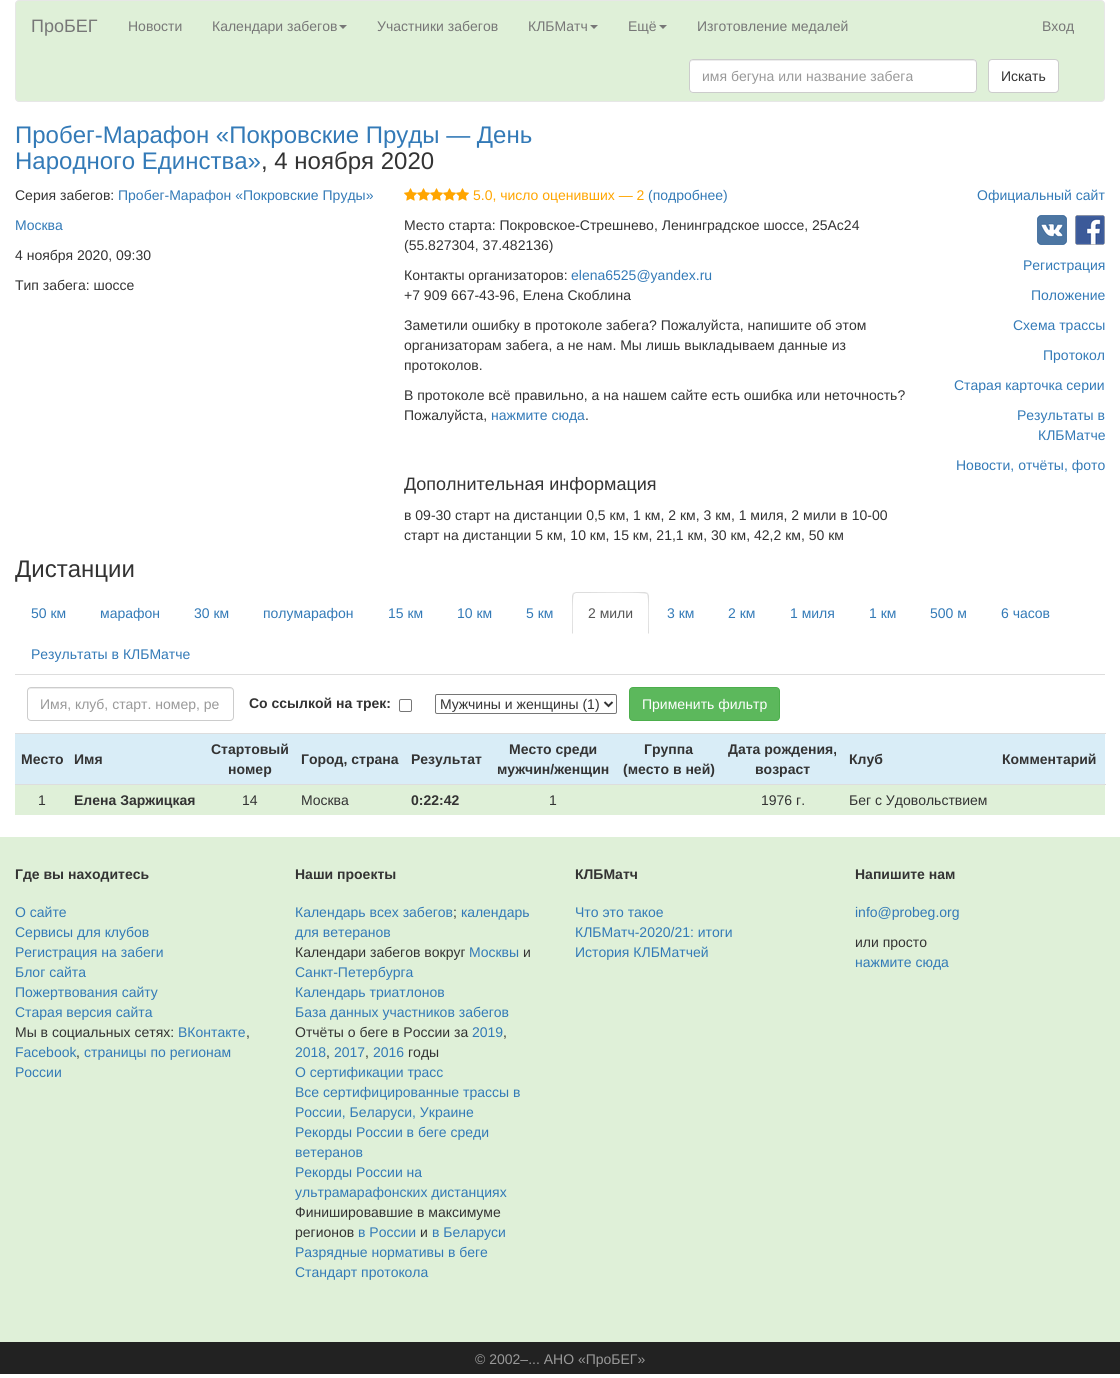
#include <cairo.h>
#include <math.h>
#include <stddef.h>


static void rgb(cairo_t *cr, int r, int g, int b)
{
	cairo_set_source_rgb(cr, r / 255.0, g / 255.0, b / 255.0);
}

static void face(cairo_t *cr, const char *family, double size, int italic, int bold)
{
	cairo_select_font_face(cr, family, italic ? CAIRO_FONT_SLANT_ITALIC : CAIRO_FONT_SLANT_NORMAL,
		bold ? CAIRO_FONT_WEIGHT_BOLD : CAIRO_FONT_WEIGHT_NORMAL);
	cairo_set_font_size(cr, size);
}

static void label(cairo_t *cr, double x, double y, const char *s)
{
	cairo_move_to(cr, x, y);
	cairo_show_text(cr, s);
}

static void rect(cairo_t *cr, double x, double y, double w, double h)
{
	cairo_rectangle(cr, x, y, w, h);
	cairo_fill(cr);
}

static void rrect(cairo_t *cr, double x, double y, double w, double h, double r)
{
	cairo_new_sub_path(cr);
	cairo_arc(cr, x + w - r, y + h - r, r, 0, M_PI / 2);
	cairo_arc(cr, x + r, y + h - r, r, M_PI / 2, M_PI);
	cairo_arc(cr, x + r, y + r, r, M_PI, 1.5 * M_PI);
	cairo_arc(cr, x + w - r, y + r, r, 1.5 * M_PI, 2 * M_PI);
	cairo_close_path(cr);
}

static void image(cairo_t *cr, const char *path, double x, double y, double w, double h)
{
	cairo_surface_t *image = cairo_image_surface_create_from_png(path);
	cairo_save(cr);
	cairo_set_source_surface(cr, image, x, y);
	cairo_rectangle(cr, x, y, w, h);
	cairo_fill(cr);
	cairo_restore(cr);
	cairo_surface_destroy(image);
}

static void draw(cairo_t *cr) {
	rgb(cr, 255, 255, 255);
	cairo_paint(cr);
	rgb(cr, 223, 240, 216);
	rrect(cr, 15.5, 0.5, 1089, 101, 3.5);
	cairo_fill_preserve(cr);
	rgb(cr, 231, 231, 231);
	cairo_set_line_width(cr, 1);
	cairo_stroke(cr);
	face(cr, "Liberation Sans", 18, 0, 0);
	rgb(cr, 119, 119, 119);
	label(cr, 31, 32, "ПроБЕГ");
	face(cr, "Liberation Sans", 14, 0, 0);
	label(cr, 128, 31, "Новости");
	label(cr, 212, 31, "Календари забегов");
	cairo_new_path(cr);
	cairo_move_to(cr, 339, 25);
	cairo_line_to(cr, 347, 25);
	cairo_line_to(cr, 343, 29);
	cairo_close_path(cr);
	cairo_fill(cr);
	label(cr, 377, 31, "Участники забегов");
	label(cr, 528, 31, "КЛБМатч");
	cairo_new_path(cr);
	cairo_move_to(cr, 590, 25);
	cairo_line_to(cr, 598, 25);
	cairo_line_to(cr, 594, 29);
	cairo_close_path(cr);
	cairo_fill(cr);
	label(cr, 628, 31, "Ещё");
	cairo_new_path(cr);
	cairo_move_to(cr, 659, 25);
	cairo_line_to(cr, 667, 25);
	cairo_line_to(cr, 663, 29);
	cairo_close_path(cr);
	cairo_fill(cr);
	label(cr, 697, 31, "Изготовление медалей");
	label(cr, 1042, 31, "Вход");
	rgb(cr, 255, 255, 255);
	rrect(cr, 689, 59, 288, 34, 4);
	cairo_fill(cr);
	rgb(cr, 236, 236, 236);
	cairo_new_path(cr);
	cairo_move_to(cr, 693, 61);
	cairo_line_to(cr, 973, 61);
	cairo_curve_to(cr, 975, 61, 976, 62, 976, 64);
	cairo_curve_to(cr, 976, 62, 975, 60, 973, 60);
	cairo_line_to(cr, 693, 60);
	cairo_curve_to(cr, 691, 60, 690, 62, 690, 64);
	cairo_curve_to(cr, 690, 62, 691, 61, 693, 61);
	cairo_close_path(cr);
	cairo_fill(cr);
	rrect(cr, 689.5, 59.5, 287, 33, 3.5);
	rgb(cr, 204, 204, 204);
	cairo_stroke(cr);
	rgb(cr, 153, 153, 153);
	label(cr, 702, 81, "имя бегуна или название забега");
	rgb(cr, 255, 255, 255);
	rrect(cr, 988.5, 59.5, 70, 33, 3.5);
	cairo_fill_preserve(cr);
	rgb(cr, 204, 204, 204);
	cairo_stroke(cr);
	rgb(cr, 51, 51, 51);
	label(cr, 1001, 81, "Искать");
	face(cr, "Liberation Sans", 24, 0, 0);
	rgb(cr, 51, 122, 183);
	label(cr, 15, 143, "Пробег-Марафон «Покровские Пруды — День");
	label(cr, 15, 169, "Народного Единства»");
	rgb(cr, 51, 51, 51);
	label(cr, 261, 169, ", 4 ноября 2020");
	face(cr, "Liberation Sans", 14, 0, 0);
	label(cr, 15, 200, "Серия забегов:");
	rgb(cr, 51, 122, 183);
	label(cr, 118, 200, "Пробег-Марафон «Покровские Пруды»");
	label(cr, 15, 230, "Москва");
	rgb(cr, 51, 51, 51);
	label(cr, 15, 260, "4 ноября 2020, 09:30");
	label(cr, 15, 290, "Тип забега: шоссе");
	image(cr, "image0.png", 404, 188, 13, 13);
	image(cr, "image0.png", 417, 188, 13, 13);
	image(cr, "image0.png", 430, 188, 13, 13);
	image(cr, "image0.png", 443, 188, 13, 13);
	image(cr, "image0.png", 456, 188, 13, 13);
	rgb(cr, 255, 165, 0);
	label(cr, 473, 200, "5.0, число оценивших — 2");
	rgb(cr, 51, 122, 183);
	label(cr, 648, 200, "(подробнее)");
	rgb(cr, 51, 51, 51);
	label(cr, 404, 230, "Место старта: Покровское-Стрешнево, Ленинградское шоссе, 25Ас24");
	label(cr, 404, 250, "(55.827304, 37.482136)");
	label(cr, 404, 280, "Контакты организаторов:");
	rgb(cr, 51, 122, 183);
	label(cr, 571, 280, "elena6525@yandex.ru");
	rgb(cr, 51, 51, 51);
	label(cr, 404, 300, "+7 909 667-43-96, Елена Скоблина");
	label(cr, 404, 330, "Заметили ошибку в протоколе забега? Пожалуйста, напишите об этом");
	label(cr, 404, 350, "организаторам забега, а не нам. Мы лишь выкладываем данные из");
	label(cr, 404, 370, "протоколов.");
	label(cr, 404, 400, "В протоколе всё правильно, а на нашем сайте есть ошибка или неточность?");
	label(cr, 404, 420, "Пожалуйста,");
	rgb(cr, 51, 122, 183);
	label(cr, 491, 420, "нажмите сюда");
	rgb(cr, 51, 51, 51);
	label(cr, 585, 420, ".");
	face(cr, "Liberation Sans", 18, 0, 0);
	label(cr, 404, 490, "Дополнительная информация");
	face(cr, "Liberation Sans", 14, 0, 0);
	label(cr, 404, 520, "в 09-30 старт на дистанции 0,5 км, 1 км, 2 км, 3 км, 1 миля, 2 мили в 10-00");
	label(cr, 404, 540, "старт на дистанции 5 км, 10 км, 15 км, 21,1 км, 30 км, 42,2 км, 50 км");
	rgb(cr, 51, 122, 183);
	label(cr, 977, 200, "Официальный сайт");
	image(cr, "image1.png", 1037, 215, 30, 30);
	image(cr, "image2.png", 1075, 215, 30, 30);
	label(cr, 1023, 270, "Регистрация");
	label(cr, 1031, 300, "Положение");
	label(cr, 1013, 330, "Схема трассы");
	label(cr, 1043, 360, "Протокол");
	label(cr, 954, 390, "Старая карточка серии");
	label(cr, 1017, 420, "Результаты в");
	label(cr, 1038, 440, "КЛБМатче");
	label(cr, 956, 470, "Новости, отчёты, фото");
	face(cr, "Liberation Sans", 24, 0, 0);
	rgb(cr, 51, 51, 51);
	label(cr, 15, 577, "Дистанции");
	rgb(cr, 221, 221, 221);
	rect(cr, 15, 674, 1090, 1);
	face(cr, "Liberation Sans", 14, 0, 0);
	rgb(cr, 51, 122, 183);
	label(cr, 31, 618, "50 км");
	label(cr, 100, 618, "марафон");
	label(cr, 194, 618, "30 км");
	label(cr, 263, 618, "полумарафон");
	label(cr, 388, 618, "15 км");
	label(cr, 457, 618, "10 км");
	label(cr, 526, 618, "5 км");
	rgb(cr, 221, 221, 221);
	cairo_new_path(cr);
	cairo_move_to(cr, 576, 592);
	cairo_line_to(cr, 573, 593);
	cairo_line_to(cr, 574, 594);
	cairo_line_to(cr, 576, 593);
	cairo_line_to(cr, 588, 593);
	cairo_curve_to(cr, 594, 593, 645, 592, 647, 594);
	cairo_line_to(cr, 648, 593);
	cairo_line_to(cr, 645, 592);
	cairo_close_path(cr);
	cairo_fill(cr);
	cairo_new_path(cr);
	cairo_move_to(cr, 649, 634);
	cairo_line_to(cr, 649, 596);
	cairo_curve_to(cr, 649, 595, 648, 594, 648, 593);
	cairo_line_to(cr, 647, 594);
	cairo_curve_to(cr, 649, 596, 648, 628, 648, 633);
	cairo_close_path(cr);
	cairo_fill(cr);
	cairo_new_path(cr);
	cairo_move_to(cr, 572, 634);
	cairo_line_to(cr, 573, 633);
	cairo_curve_to(cr, 573, 628, 572, 596, 574, 594);
	cairo_line_to(cr, 573, 593);
	cairo_line_to(cr, 572, 596);
	cairo_close_path(cr);
	cairo_fill(cr);
	rgb(cr, 85, 85, 85);
	label(cr, 588, 618, "2 мили");
	rgb(cr, 51, 122, 183);
	label(cr, 667, 618, "3 км");
	label(cr, 728, 618, "2 км");
	label(cr, 790, 618, "1 миля");
	label(cr, 869, 618, "1 км");
	label(cr, 930, 618, "500 м");
	label(cr, 1001, 618, "6 часов");
	label(cr, 31, 659, "Результаты в КЛБМатче");
	rgb(cr, 236, 236, 236);
	cairo_new_path(cr);
	cairo_move_to(cr, 31, 689);
	cairo_line_to(cr, 230, 689);
	cairo_curve_to(cr, 232, 689, 233, 690, 233, 692);
	cairo_curve_to(cr, 233, 690, 232, 688, 230, 688);
	cairo_line_to(cr, 31, 688);
	cairo_curve_to(cr, 29, 688, 28, 690, 28, 692);
	cairo_curve_to(cr, 28, 690, 29, 689, 31, 689);
	cairo_close_path(cr);
	cairo_fill(cr);
	rrect(cr, 27.5, 687.5, 206, 33, 3.5);
	rgb(cr, 204, 204, 204);
	cairo_stroke(cr);
	rgb(cr, 153, 153, 153);
	label(cr, 40, 709, "Имя, клуб, старт. номер, ре");
	face(cr, "Liberation Sans", 14, 0, 1);
	rgb(cr, 51, 51, 51);
	label(cr, 249, 708, "Со ссылкой на трек:");
	rrect(cr, 399.5, 699.5, 12, 12, 1.5);
	rgb(cr, 118, 118, 118);
	cairo_stroke(cr);
	rrect(cr, 435.5, 694.5, 181, 19, 1.5);
	cairo_stroke(cr);
	cairo_new_path(cr);
	cairo_move_to(cr, 604.5, 702);
	cairo_line_to(cr, 608.5, 706);
	cairo_line_to(cr, 612.5, 702);
	rgb(cr, 51, 51, 51);
	cairo_set_line_width(cr, 2);
	cairo_stroke(cr);
	face(cr, "Liberation Sans", 14, 0, 0);
	label(cr, 440, 709, "Мужчины и женщины (1)");
	rgb(cr, 92, 184, 92);
	rrect(cr, 629.5, 687.5, 150, 33, 3.5);
	cairo_fill_preserve(cr);
	rgb(cr, 76, 174, 76);
	cairo_set_line_width(cr, 1);
	cairo_stroke(cr);
	rgb(cr, 255, 255, 255);
	label(cr, 642, 709, "Применить фильтр");
	rgb(cr, 217, 237, 247);
	rect(cr, 15, 734, 1090, 50);
	face(cr, "Liberation Sans", 14, 0, 1);
	rgb(cr, 51, 51, 51);
	label(cr, 21, 764, "Место");
	label(cr, 74, 764, "Имя");
	label(cr, 211, 754, "Стартовый");
	label(cr, 228, 774, "номер");
	label(cr, 301, 764, "Город, страна");
	label(cr, 411, 764, "Результат");
	label(cr, 509, 754, "Место среди");
	label(cr, 497, 774, "мужчин/женщин");
	label(cr, 644, 754, "Группа");
	label(cr, 623, 774, "(место в ней)");
	label(cr, 728, 754, "Дата рождения,");
	label(cr, 755, 774, "возраст");
	label(cr, 849, 764, "Клуб");
	rgb(cr, 221, 221, 221);
	rect(cr, 15, 733, 1091, 1);
	rgb(cr, 51, 51, 51);
	label(cr, 1002, 764, "Комментарий");
	rgb(cr, 221, 221, 221);
	rect(cr, 15, 784, 1091, 1);
	rgb(cr, 223, 240, 216);
	rect(cr, 15, 785, 1090, 30);
	face(cr, "Liberation Sans", 14, 0, 0);
	rgb(cr, 51, 51, 51);
	label(cr, 38, 805, "1");
	face(cr, "Liberation Sans", 14, 0, 1);
	label(cr, 74, 805, "Елена Заржицкая");
	face(cr, "Liberation Sans", 14, 0, 0);
	label(cr, 242, 805, "14");
	label(cr, 301, 805, "Москва");
	face(cr, "Liberation Sans", 14, 0, 1);
	label(cr, 411, 805, "0:22:42");
	face(cr, "Liberation Sans", 14, 0, 0);
	label(cr, 549, 805, "1");
	label(cr, 761, 805, "1976 г.");
	label(cr, 849, 805, "Бег с Удовольствием");
	rgb(cr, 223, 240, 216);
	rect(cr, 0, 837, 1120, 505);
	face(cr, "Liberation Sans", 14, 0, 1);
	rgb(cr, 51, 51, 51);
	label(cr, 15, 879, "Где вы находитесь");
	face(cr, "Liberation Sans", 14, 0, 0);
	rgb(cr, 51, 122, 183);
	label(cr, 15, 917, "О сайте");
	label(cr, 15, 937, "Сервисы для клубов");
	label(cr, 15, 957, "Регистрация на забеги");
	label(cr, 15, 977, "Блог сайта");
	label(cr, 15, 997, "Пожертвования сайту");
	label(cr, 15, 1017, "Старая версия сайта");
	rgb(cr, 51, 51, 51);
	label(cr, 15, 1037, "Мы в социальных сетях:");
	rgb(cr, 51, 122, 183);
	label(cr, 178, 1037, "ВКонтакте");
	rgb(cr, 51, 51, 51);
	label(cr, 246, 1037, ",");
	rgb(cr, 51, 122, 183);
	label(cr, 15, 1057, "Facebook");
	rgb(cr, 51, 51, 51);
	label(cr, 76, 1057, ",");
	rgb(cr, 51, 122, 183);
	label(cr, 84, 1057, "страницы по регионам");
	label(cr, 15, 1077, "России");
	face(cr, "Liberation Sans", 14, 0, 1);
	rgb(cr, 51, 51, 51);
	label(cr, 295, 879, "Наши проекты");
	face(cr, "Liberation Sans", 14, 0, 0);
	rgb(cr, 51, 122, 183);
	label(cr, 295, 917, "Календарь всех забегов");
	rgb(cr, 51, 51, 51);
	label(cr, 453, 917, ";");
	rgb(cr, 51, 122, 183);
	label(cr, 461, 917, "календарь");
	label(cr, 295, 937, "для ветеранов");
	rgb(cr, 51, 51, 51);
	label(cr, 295, 957, "Календари забегов вокруг");
	rgb(cr, 51, 122, 183);
	label(cr, 469, 957, "Москвы");
	rgb(cr, 51, 51, 51);
	label(cr, 523, 957, "и");
	rgb(cr, 51, 122, 183);
	label(cr, 295, 977, "Санкт-Петербурга");
	label(cr, 295, 997, "Календарь триатлонов");
	label(cr, 295, 1017, "База данных участников забегов");
	rgb(cr, 51, 51, 51);
	label(cr, 295, 1037, "Отчёты о беге в России за");
	rgb(cr, 51, 122, 183);
	label(cr, 472, 1037, "2019");
	rgb(cr, 51, 51, 51);
	label(cr, 503, 1037, ",");
	rgb(cr, 51, 122, 183);
	label(cr, 295, 1057, "2018");
	rgb(cr, 51, 51, 51);
	label(cr, 326, 1057, ",");
	rgb(cr, 51, 122, 183);
	label(cr, 334, 1057, "2017");
	rgb(cr, 51, 51, 51);
	label(cr, 365, 1057, ",");
	rgb(cr, 51, 122, 183);
	label(cr, 373, 1057, "2016");
	rgb(cr, 51, 51, 51);
	label(cr, 408, 1057, "годы");
	rgb(cr, 51, 122, 183);
	label(cr, 295, 1077, "О сертификации трасс");
	label(cr, 295, 1097, "Все сертифицированные трассы в");
	label(cr, 295, 1117, "России, Беларуси, Украине");
	label(cr, 295, 1137, "Рекорды России в беге среди");
	label(cr, 295, 1157, "ветеранов");
	label(cr, 295, 1177, "Рекорды России на");
	label(cr, 295, 1197, "ультрамарафонских дистанциях");
	rgb(cr, 51, 51, 51);
	label(cr, 295, 1217, "Финишировавшие в максимуме");
	label(cr, 295, 1237, "регионов");
	rgb(cr, 51, 122, 183);
	label(cr, 358, 1237, "в России");
	rgb(cr, 51, 51, 51);
	label(cr, 420, 1237, "и");
	rgb(cr, 51, 122, 183);
	label(cr, 432, 1237, "в Беларуси");
	label(cr, 295, 1257, "Разрядные нормативы в беге");
	label(cr, 295, 1277, "Стандарт протокола");
	face(cr, "Liberation Sans", 14, 0, 1);
	rgb(cr, 51, 51, 51);
	label(cr, 575, 879, "КЛБМатч");
	face(cr, "Liberation Sans", 14, 0, 0);
	rgb(cr, 51, 122, 183);
	label(cr, 575, 917, "Что это такое");
	label(cr, 575, 937, "КЛБМатч-2020/21: итоги");
	label(cr, 575, 957, "История КЛБМатчей");
	face(cr, "Liberation Sans", 14, 0, 1);
	rgb(cr, 51, 51, 51);
	label(cr, 855, 879, "Напишите нам");
	face(cr, "Liberation Sans", 14, 0, 0);
	rgb(cr, 51, 122, 183);
	label(cr, 855, 917, "info@probeg.org");
	rgb(cr, 51, 51, 51);
	label(cr, 855, 947, "или просто");
	rgb(cr, 51, 122, 183);
	label(cr, 855, 967, "нажмите сюда");
	rgb(cr, 34, 34, 34);
	rect(cr, 0, 1342, 1120, 32);
	rgb(cr, 153, 153, 153);
	label(cr, 475, 1364, "© 2002–... АНО «ПроБЕГ»");
}

int main(void) {
	cairo_surface_t *surface = cairo_image_surface_create(CAIRO_FORMAT_RGB24, 1120, 1378);
	cairo_t *cr = cairo_create(surface);
	cairo_font_options_t *options = cairo_font_options_create();
	cairo_font_options_set_hint_metrics(options, CAIRO_HINT_METRICS_OFF);
	cairo_font_options_set_hint_style(options, CAIRO_HINT_STYLE_NONE);
	cairo_set_font_options(cr, options);
	cairo_set_miter_limit(cr, 4);
	draw(cr);
	cairo_surface_write_to_png(surface, "render.png");
	cairo_font_options_destroy(options);
	cairo_destroy(cr);
	cairo_surface_destroy(surface);
	return 0;
}
